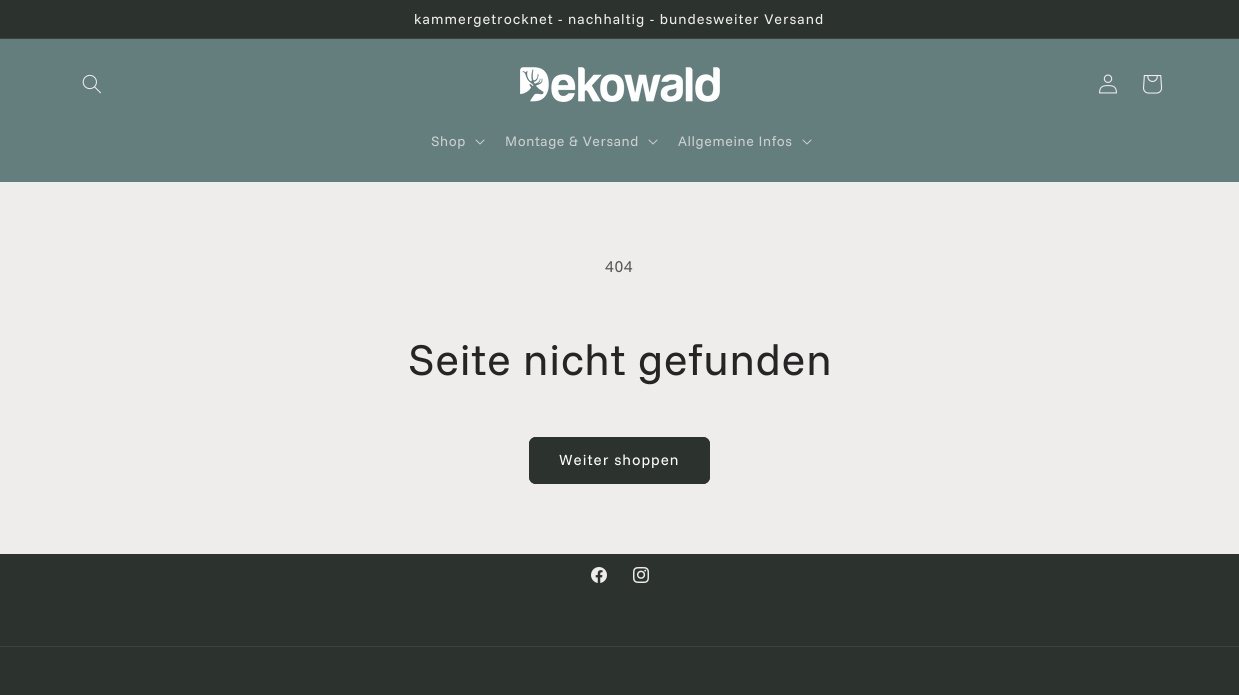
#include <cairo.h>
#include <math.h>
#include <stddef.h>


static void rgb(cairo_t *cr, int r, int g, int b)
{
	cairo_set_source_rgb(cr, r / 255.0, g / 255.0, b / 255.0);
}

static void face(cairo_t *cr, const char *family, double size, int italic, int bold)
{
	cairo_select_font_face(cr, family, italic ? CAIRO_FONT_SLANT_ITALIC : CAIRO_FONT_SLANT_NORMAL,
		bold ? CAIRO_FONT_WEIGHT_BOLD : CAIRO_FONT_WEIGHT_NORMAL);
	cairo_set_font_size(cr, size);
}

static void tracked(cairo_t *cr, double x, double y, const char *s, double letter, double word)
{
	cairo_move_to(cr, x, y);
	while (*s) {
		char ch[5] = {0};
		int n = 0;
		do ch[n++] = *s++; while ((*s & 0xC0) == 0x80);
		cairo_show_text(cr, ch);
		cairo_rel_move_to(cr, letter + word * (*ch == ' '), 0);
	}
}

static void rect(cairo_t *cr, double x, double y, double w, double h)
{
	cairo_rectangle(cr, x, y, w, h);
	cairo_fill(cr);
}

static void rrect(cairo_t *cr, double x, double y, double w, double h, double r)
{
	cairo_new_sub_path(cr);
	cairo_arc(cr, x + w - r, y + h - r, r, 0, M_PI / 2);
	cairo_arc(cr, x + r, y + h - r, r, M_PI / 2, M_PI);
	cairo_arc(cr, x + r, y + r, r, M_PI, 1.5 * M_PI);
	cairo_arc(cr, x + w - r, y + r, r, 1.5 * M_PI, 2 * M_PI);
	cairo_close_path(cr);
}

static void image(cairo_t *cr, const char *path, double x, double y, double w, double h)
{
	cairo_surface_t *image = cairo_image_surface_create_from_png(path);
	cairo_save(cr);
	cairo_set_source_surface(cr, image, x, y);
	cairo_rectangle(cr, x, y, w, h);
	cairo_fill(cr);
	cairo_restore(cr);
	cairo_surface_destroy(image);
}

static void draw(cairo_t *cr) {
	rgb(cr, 239, 236, 236);
	cairo_paint(cr);
	rgb(cr, 44, 51, 47);
	rect(cr, 0, 0, 1239, 38);
	rgb(cr, 60, 66, 62);
	rect(cr, 0, 38, 1239, 1);
	face(cr, "Funnel Sans", 14.3, 0, 0);
	rgb(cr, 239, 236, 236);
	tracked(cr, 414, 24, "kammergetrocknet - nachhaltig - bundesweiter Versand", 1, 0);
	rgb(cr, 100, 125, 125);
	rect(cr, 0, 39, 1239, 143);
	image(cr, "image0.png", 82, 74, 19, 20);
	image(cr, "image1.png", 520, 67, 200, 35);
	image(cr, "image2.png", 1099, 74, 18, 20);
	image(cr, "image3.png", 1143, 75, 20, 19);
	face(cr, "Funnel Sans", 14, 0, 0);
	rgb(cr, 204, 208, 208);
	tracked(cr, 431, 146, "Shop", 0.6, 0);
	image(cr, "image4.png", 475, 139, 10, 6);
	tracked(cr, 505, 146, "Montage & Versand", 0.6, 0);
	image(cr, "image4.png", 648, 139, 10, 6);
	tracked(cr, 678, 146, "Allgemeine Infos", 0.6, 0);
	image(cr, "image4.png", 802, 139, 10, 6);
	face(cr, "Funnel Sans", 16, 0, 0);
	rgb(cr, 88, 87, 87);
	tracked(cr, 605, 272, "404", 0.6, 0);
	face(cr, "Funnel Sans", 44, 0, 0);
	rgb(cr, 37, 37, 37);
	tracked(cr, 408, 375, "Seite nicht gefunden", 0.7, 0);
	rgb(cr, 44, 51, 47);
	rrect(cr, 529, 437, 181, 47, 7);
	cairo_fill(cr);
	rrect(cr, 529.5, 437.5, 180, 46, 6.5);
	cairo_set_line_width(cr, 1);
	cairo_stroke(cr);
	face(cr, "Funnel Sans", 15, 0, 0);
	rgb(cr, 255, 255, 255);
	tracked(cr, 559, 465, "Weiter shoppen", 1, 0);
	rgb(cr, 44, 51, 47);
	rect(cr, 0, 554, 1239, 141);
	image(cr, "image5.png", 591, 567, 16, 16);
	image(cr, "image6.png", 633, 567, 16, 16);
	rgb(cr, 60, 66, 62);
	rect(cr, 0, 646, 1239, 1);
}

int main(void) {
	cairo_surface_t *surface = cairo_image_surface_create(CAIRO_FORMAT_RGB24, 1239, 695);
	cairo_t *cr = cairo_create(surface);
	cairo_font_options_t *options = cairo_font_options_create();
	cairo_font_options_set_hint_metrics(options, CAIRO_HINT_METRICS_OFF);
	cairo_font_options_set_hint_style(options, CAIRO_HINT_STYLE_NONE);
	cairo_set_font_options(cr, options);
	cairo_set_miter_limit(cr, 4);
	draw(cr);
	cairo_surface_write_to_png(surface, "render.png");
	cairo_font_options_destroy(options);
	cairo_destroy(cr);
	cairo_surface_destroy(surface);
	return 0;
}
